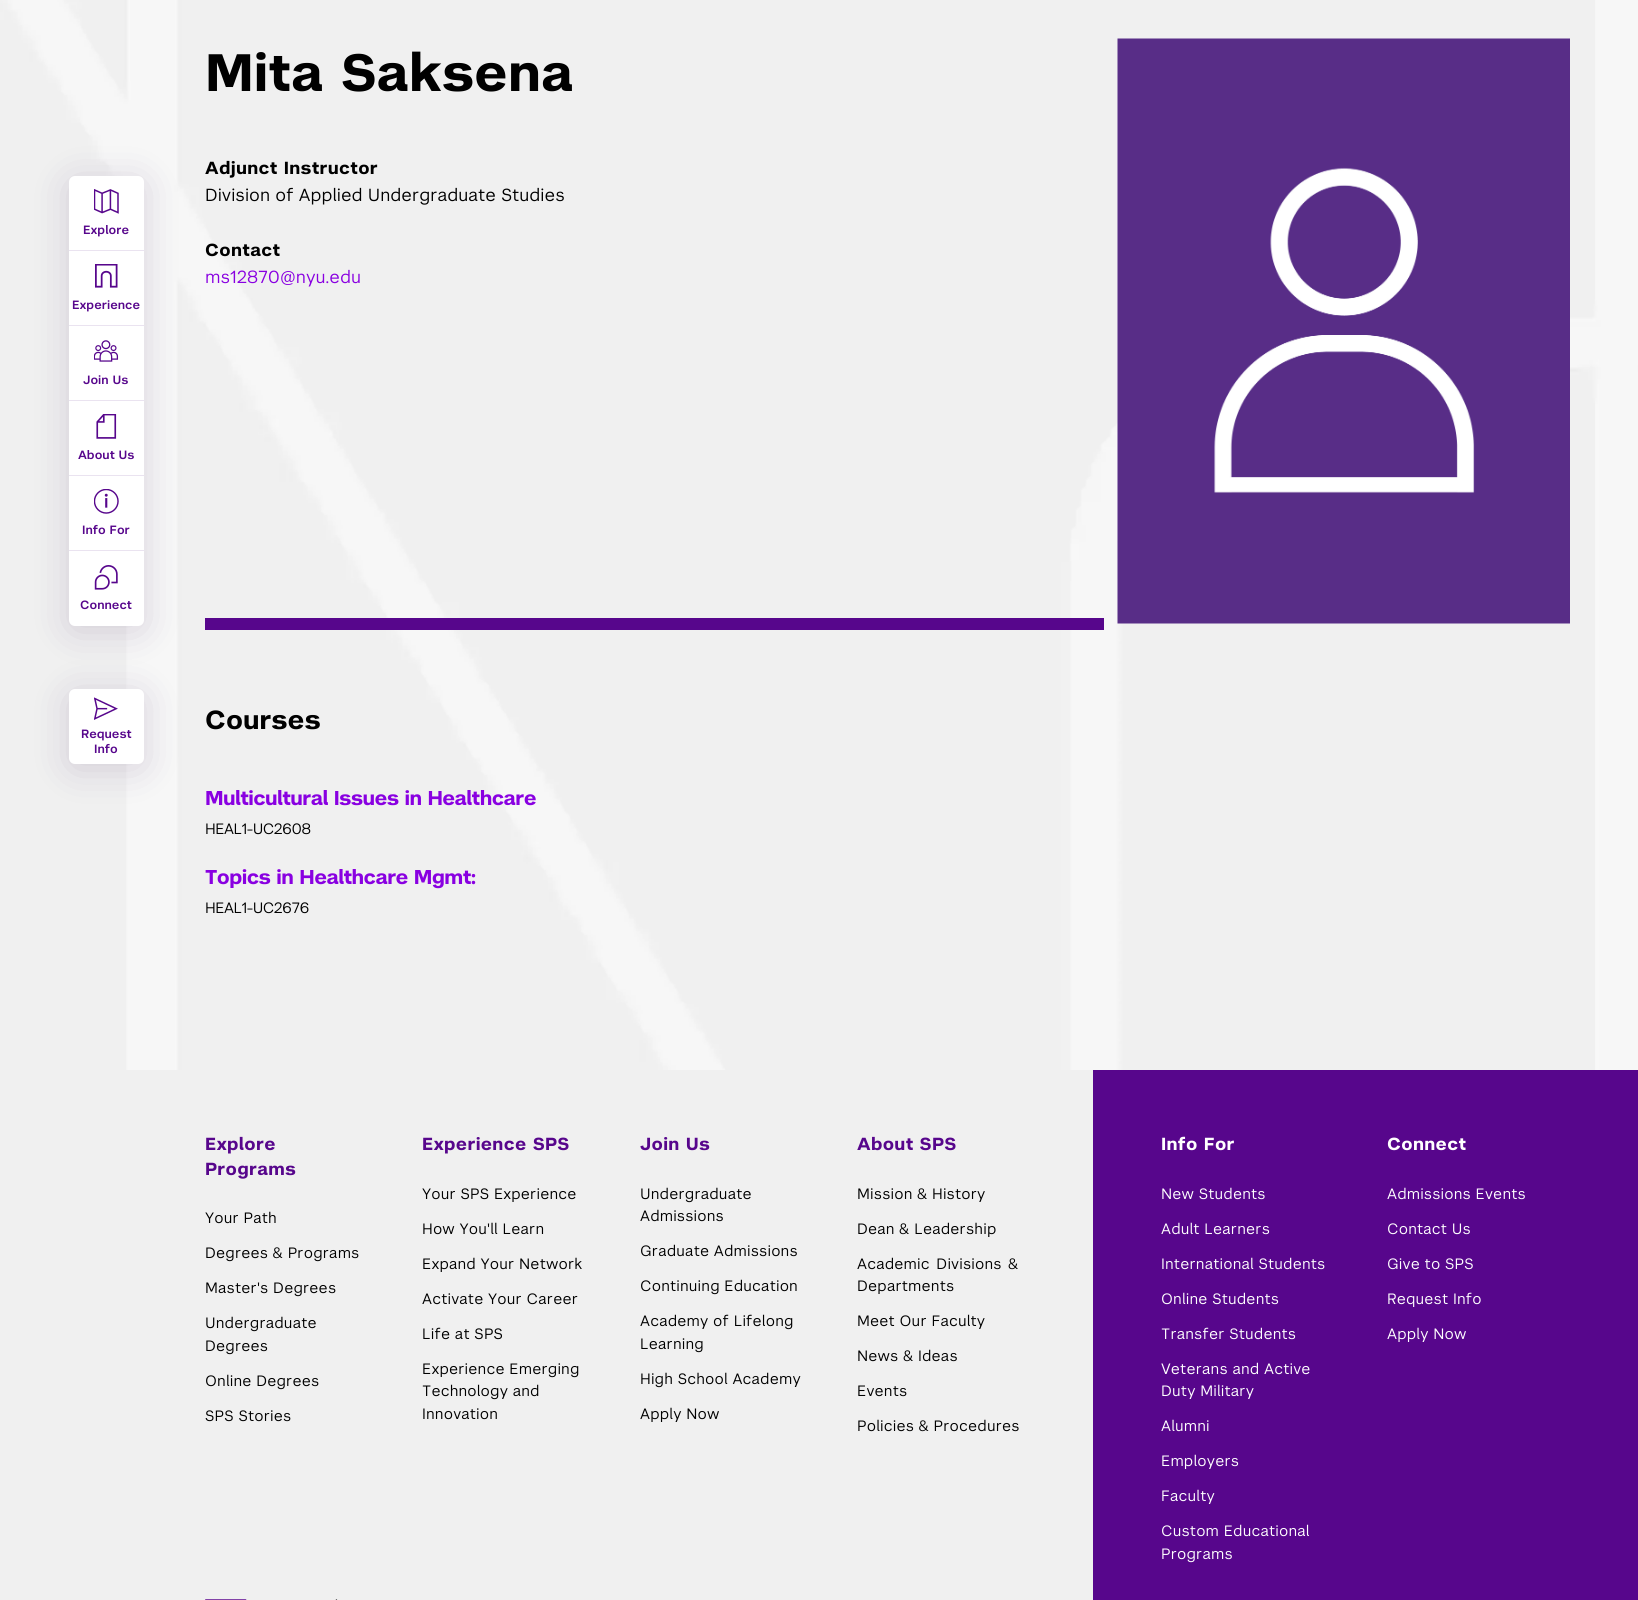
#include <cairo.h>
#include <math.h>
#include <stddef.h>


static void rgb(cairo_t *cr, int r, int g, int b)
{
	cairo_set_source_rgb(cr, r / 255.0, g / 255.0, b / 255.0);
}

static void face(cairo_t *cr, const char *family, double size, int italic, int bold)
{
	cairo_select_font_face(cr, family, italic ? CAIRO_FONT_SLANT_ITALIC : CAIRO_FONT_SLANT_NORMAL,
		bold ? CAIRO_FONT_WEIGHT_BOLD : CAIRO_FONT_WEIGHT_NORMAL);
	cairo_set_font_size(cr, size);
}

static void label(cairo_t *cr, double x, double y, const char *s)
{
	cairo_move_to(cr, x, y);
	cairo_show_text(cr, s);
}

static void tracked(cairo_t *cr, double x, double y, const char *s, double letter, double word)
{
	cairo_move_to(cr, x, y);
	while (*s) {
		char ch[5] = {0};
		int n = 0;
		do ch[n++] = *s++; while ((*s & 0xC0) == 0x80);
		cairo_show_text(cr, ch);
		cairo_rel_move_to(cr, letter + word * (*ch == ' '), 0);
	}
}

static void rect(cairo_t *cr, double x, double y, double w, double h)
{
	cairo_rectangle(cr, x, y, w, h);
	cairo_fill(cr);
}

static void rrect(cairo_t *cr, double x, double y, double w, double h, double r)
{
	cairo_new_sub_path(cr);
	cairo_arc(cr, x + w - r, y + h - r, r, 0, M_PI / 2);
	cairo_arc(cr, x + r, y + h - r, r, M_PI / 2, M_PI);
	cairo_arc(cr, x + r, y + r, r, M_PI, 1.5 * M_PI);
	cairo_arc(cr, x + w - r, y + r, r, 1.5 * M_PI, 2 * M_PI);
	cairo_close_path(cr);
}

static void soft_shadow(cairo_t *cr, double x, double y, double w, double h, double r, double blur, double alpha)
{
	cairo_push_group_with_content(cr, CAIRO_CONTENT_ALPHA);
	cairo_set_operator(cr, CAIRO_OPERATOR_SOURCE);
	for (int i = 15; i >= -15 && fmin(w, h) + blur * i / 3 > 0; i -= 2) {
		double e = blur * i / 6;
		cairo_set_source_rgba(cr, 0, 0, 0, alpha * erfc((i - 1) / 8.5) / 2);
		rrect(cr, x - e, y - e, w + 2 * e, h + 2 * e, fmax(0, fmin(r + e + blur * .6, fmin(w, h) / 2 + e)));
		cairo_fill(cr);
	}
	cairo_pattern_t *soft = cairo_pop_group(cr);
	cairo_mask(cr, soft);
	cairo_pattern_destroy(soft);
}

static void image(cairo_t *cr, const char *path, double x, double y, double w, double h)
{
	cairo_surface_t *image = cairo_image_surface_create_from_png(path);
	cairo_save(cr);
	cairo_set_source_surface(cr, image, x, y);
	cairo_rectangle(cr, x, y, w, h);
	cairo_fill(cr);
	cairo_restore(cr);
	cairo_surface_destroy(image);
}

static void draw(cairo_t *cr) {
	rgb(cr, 255, 255, 255);
	cairo_paint(cr);
	image(cr, "image0.png", 0, 0, 1638, 1070);
	rgb(cr, 39, 6, 72);
	soft_shadow(cr, 69, 181, 75, 450, 6, 19, 0.15);
	rgb(cr, 255, 255, 255);
	rrect(cr, 69, 176, 75, 450, 6);
	cairo_fill(cr);
	rgb(cr, 234, 227, 240);
	rect(cr, 69, 250, 75, 1);
	image(cr, "image1.png", 94, 189, 25, 25);
	face(cr, "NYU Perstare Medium", 12, 0, 0);
	rgb(cr, 87, 6, 140);
	label(cr, 83, 234, "Explore");
	rgb(cr, 234, 227, 240);
	rect(cr, 69, 325, 75, 1);
	image(cr, "image2.png", 95, 264, 23, 24);
	rgb(cr, 87, 6, 140);
	label(cr, 72, 309, "Experience");
	rgb(cr, 234, 227, 240);
	rect(cr, 69, 400, 75, 1);
	image(cr, "image3.png", 94, 340, 25, 22);
	rgb(cr, 87, 6, 140);
	label(cr, 83, 384, "Join Us");
	rgb(cr, 234, 227, 240);
	rect(cr, 69, 475, 75, 1);
	image(cr, "image4.png", 96, 414, 21, 25);
	rgb(cr, 87, 6, 140);
	label(cr, 78, 459, "About Us");
	rgb(cr, 234, 227, 240);
	rect(cr, 69, 550, 75, 1);
	image(cr, "image5.png", 94, 489, 25, 25);
	rgb(cr, 87, 6, 140);
	label(cr, 82, 534, "Info For");
	image(cr, "image6.png", 94, 565, 24, 25);
	label(cr, 80, 609, "Connect");
	rgb(cr, 39, 6, 72);
	soft_shadow(cr, 69, 694, 75, 75, 6, 19, 0.15);
	rgb(cr, 255, 255, 255);
	rrect(cr, 69, 689, 75, 75, 6);
	cairo_fill(cr);
	image(cr, "image7.png", 94, 697, 24, 23);
	rgb(cr, 87, 6, 140);
	label(cr, 81, 738, "Request");
	label(cr, 94, 753, "Info");
	rect(cr, 205, 618, 899, 12);
	face(cr, "NYU Perstare", 52.5, 0, 1);
	rgb(cr, 0, 0, 0);
	label(cr, 205, 91, "Mita Saksena");
	face(cr, "NYU Perstare", 17.5, 0, 1);
	tracked(cr, 205, 174, "Adjunct Instructor", 0.3, 0);
	face(cr, "NYU Perstare", 17.5, 0, 0);
	label(cr, 205, 201, "Division of Applied Undergraduate Studies");
	face(cr, "NYU Perstare", 17.5, 0, 1);
	tracked(cr, 205, 256, "Contact", 0.3, 0);
	face(cr, "NYU Perstare", 17.5, 0, 0);
	rgb(cr, 137, 0, 225);
	label(cr, 205, 283, "ms12870@nyu.edu");
	image(cr, "image8.png", 1117, 38, 453, 586);
	face(cr, "NYU Perstare", 26.25, 0, 1);
	rgb(cr, 0, 0, 0);
	label(cr, 205, 729, "Courses");
	face(cr, "NYU Perstare", 20, 0, 1);
	rgb(cr, 137, 0, 225);
	tracked(cr, 205, 805, "Multicultural Issues in Healthcare", -0.6, 0);
	face(cr, "NYU Perstare", 15, 0, 0);
	rgb(cr, 0, 0, 0);
	tracked(cr, 205, 834, "HEAL1-UC2608", -0.5, 0);
	face(cr, "NYU Perstare", 20, 0, 1);
	rgb(cr, 137, 0, 225);
	tracked(cr, 205, 884, "Topics in Healthcare Mgmt:", -0.6, 0);
	face(cr, "NYU Perstare", 15, 0, 0);
	rgb(cr, 0, 0, 0);
	tracked(cr, 205, 913, "HEAL1-UC2676", -0.5, 0);
	rgb(cr, 240, 240, 240);
	rect(cr, 0, 1070, 1093, 530);
	face(cr, "NYU Perstare", 17.5, 0, 1);
	rgb(cr, 87, 6, 140);
	tracked(cr, 205, 1150, "Explore", 0.3, 0);
	tracked(cr, 205, 1175, "Programs", 0.3, 0);
	face(cr, "NYU Perstare", 15, 0, 0);
	rgb(cr, 0, 0, 0);
	tracked(cr, 205, 1223, "Your Path", 0.15, 0);
	tracked(cr, 205, 1258, "Degrees & Programs", 0.15, 0);
	tracked(cr, 205, 1293, "Master's Degrees", 0.15, 0);
	tracked(cr, 205, 1328, "Undergraduate", 0.15, 0);
	tracked(cr, 205, 1351, "Degrees", 0.15, 0);
	tracked(cr, 205, 1386, "Online Degrees", 0.15, 0);
	tracked(cr, 205, 1421, "SPS Stories", 0.15, 0);
	face(cr, "NYU Perstare", 17.5, 0, 1);
	rgb(cr, 87, 6, 140);
	tracked(cr, 422, 1150, "Experience SPS", 0.3, 0);
	face(cr, "NYU Perstare", 15, 0, 0);
	rgb(cr, 0, 0, 0);
	tracked(cr, 422, 1199, "Your SPS Experience", 0.15, 0);
	tracked(cr, 422, 1234, "How You'll Learn", 0.15, 0);
	tracked(cr, 422, 1269, "Expand Your Network", 0.15, 0);
	tracked(cr, 422, 1304, "Activate Your Career", 0.15, 0);
	tracked(cr, 422, 1339, "Life at SPS", 0.15, 0);
	tracked(cr, 422, 1374, "Experience Emerging", 0.15, 0);
	tracked(cr, 422, 1396, "Technology and", 0.15, 0);
	tracked(cr, 422, 1419, "Innovation", 0.15, 0);
	face(cr, "NYU Perstare", 17.5, 0, 1);
	rgb(cr, 87, 6, 140);
	tracked(cr, 640, 1150, "Join Us", 0.3, 0);
	face(cr, "NYU Perstare", 15, 0, 0);
	rgb(cr, 0, 0, 0);
	tracked(cr, 640, 1199, "Undergraduate", 0.15, 0);
	tracked(cr, 640, 1221, "Admissions", 0.15, 0);
	tracked(cr, 640, 1256, "Graduate Admissions", 0.15, 0);
	tracked(cr, 640, 1291, "Continuing Education", 0.15, 0);
	tracked(cr, 640, 1326, "Academy of Lifelong", 0.15, 0);
	tracked(cr, 640, 1349, "Learning", 0.15, 0);
	tracked(cr, 640, 1384, "High School Academy", 0.15, 0);
	tracked(cr, 640, 1419, "Apply Now", 0.15, 0);
	face(cr, "NYU Perstare", 17.5, 0, 1);
	rgb(cr, 87, 6, 140);
	tracked(cr, 857, 1150, "About SPS", 0.3, 0);
	face(cr, "NYU Perstare", 15, 0, 0);
	rgb(cr, 0, 0, 0);
	tracked(cr, 857, 1199, "Mission & History", 0.15, 0);
	tracked(cr, 857, 1234, "Dean & Leadership", 0.15, 0);
	tracked(cr, 857, 1269, "Academic Divisions &", 0.15, 2);
	tracked(cr, 857, 1291, "Departments", 0.15, 0);
	tracked(cr, 857, 1326, "Meet Our Faculty", 0.15, 0);
	tracked(cr, 857, 1361, "News & Ideas", 0.15, 0);
	tracked(cr, 857, 1396, "Events", 0.15, 0);
	tracked(cr, 857, 1431, "Policies & Procedures", 0.15, 0);
	rgb(cr, 87, 6, 140);
	rect(cr, 1093, 1070, 545, 530);
	face(cr, "NYU Perstare", 17.5, 0, 1);
	rgb(cr, 255, 255, 255);
	tracked(cr, 1161, 1150, "Info For", 0.3, 0);
	face(cr, "NYU Perstare", 15, 0, 0);
	tracked(cr, 1161, 1199, "New Students", 0.15, 0);
	tracked(cr, 1161, 1234, "Adult Learners", 0.15, 0);
	tracked(cr, 1161, 1269, "International Students", 0.15, 0);
	tracked(cr, 1161, 1304, "Online Students", 0.15, 0);
	tracked(cr, 1161, 1339, "Transfer Students", 0.15, 0);
	tracked(cr, 1161, 1374, "Veterans and Active", 0.15, 0);
	tracked(cr, 1161, 1396, "Duty Military", 0.15, 0);
	tracked(cr, 1161, 1431, "Alumni", 0.15, 0);
	tracked(cr, 1161, 1466, "Employers", 0.15, 0);
	tracked(cr, 1161, 1501, "Faculty", 0.15, 0);
	tracked(cr, 1161, 1536, "Custom Educational", 0.15, 0);
	tracked(cr, 1161, 1559, "Programs", 0.15, 0);
	face(cr, "NYU Perstare", 17.5, 0, 1);
	tracked(cr, 1387, 1150, "Connect", 0.3, 0);
	face(cr, "NYU Perstare", 15, 0, 0);
	tracked(cr, 1387, 1199, "Admissions Events", 0.15, 0);
	tracked(cr, 1387, 1234, "Contact Us", 0.15, 0);
	tracked(cr, 1387, 1269, "Give to SPS", 0.15, 0);
	tracked(cr, 1387, 1304, "Request Info", 0.15, 0);
	tracked(cr, 1387, 1339, "Apply Now", 0.15, 0);
	image(cr, "image9.png", 205, 1599, 133, 1);
}

int main(void) {
	cairo_surface_t *surface = cairo_image_surface_create(CAIRO_FORMAT_RGB24, 1638, 1600);
	cairo_t *cr = cairo_create(surface);
	cairo_font_options_t *options = cairo_font_options_create();
	cairo_font_options_set_hint_metrics(options, CAIRO_HINT_METRICS_OFF);
	cairo_font_options_set_hint_style(options, CAIRO_HINT_STYLE_NONE);
	cairo_set_font_options(cr, options);
	cairo_set_miter_limit(cr, 4);
	draw(cr);
	cairo_surface_write_to_png(surface, "render.png");
	cairo_font_options_destroy(options);
	cairo_destroy(cr);
	cairo_surface_destroy(surface);
	return 0;
}
